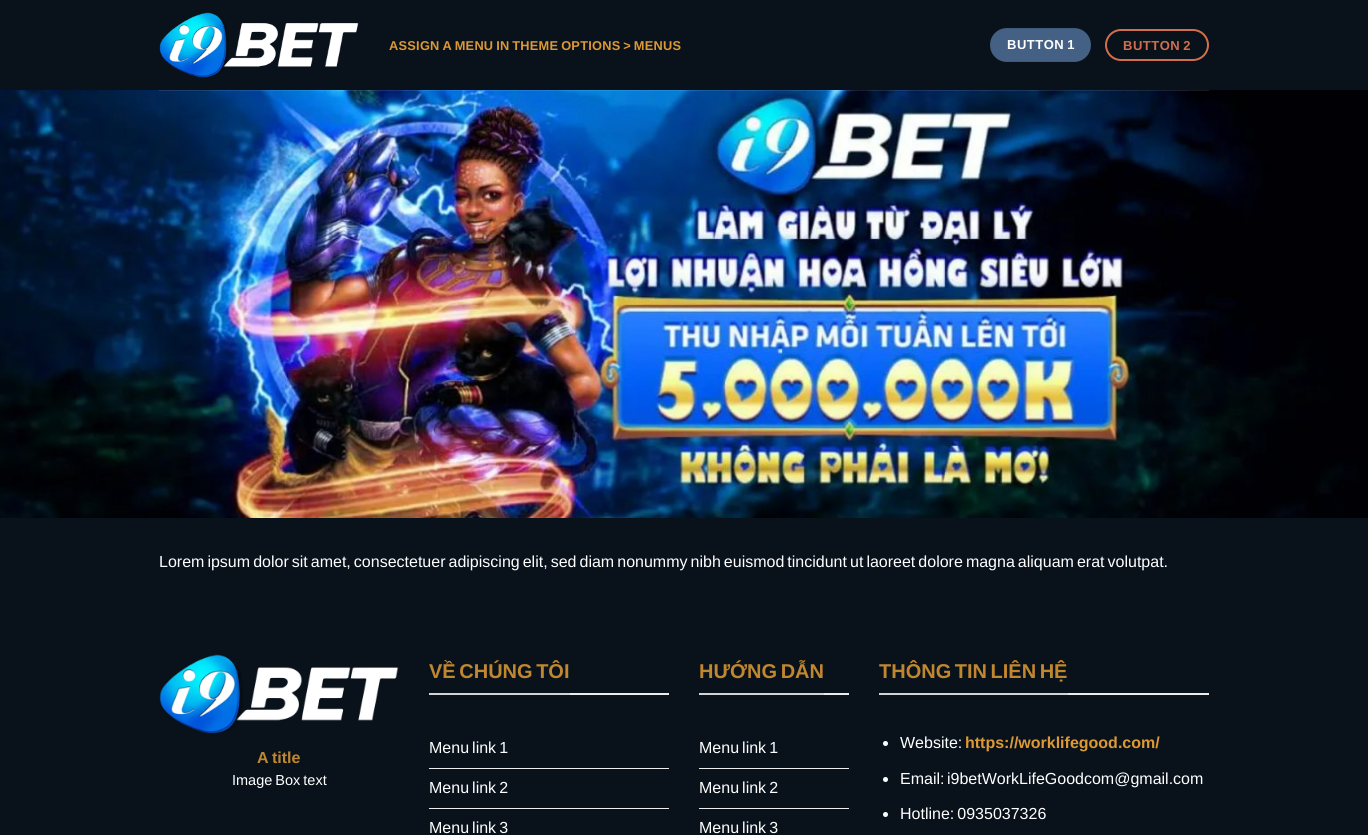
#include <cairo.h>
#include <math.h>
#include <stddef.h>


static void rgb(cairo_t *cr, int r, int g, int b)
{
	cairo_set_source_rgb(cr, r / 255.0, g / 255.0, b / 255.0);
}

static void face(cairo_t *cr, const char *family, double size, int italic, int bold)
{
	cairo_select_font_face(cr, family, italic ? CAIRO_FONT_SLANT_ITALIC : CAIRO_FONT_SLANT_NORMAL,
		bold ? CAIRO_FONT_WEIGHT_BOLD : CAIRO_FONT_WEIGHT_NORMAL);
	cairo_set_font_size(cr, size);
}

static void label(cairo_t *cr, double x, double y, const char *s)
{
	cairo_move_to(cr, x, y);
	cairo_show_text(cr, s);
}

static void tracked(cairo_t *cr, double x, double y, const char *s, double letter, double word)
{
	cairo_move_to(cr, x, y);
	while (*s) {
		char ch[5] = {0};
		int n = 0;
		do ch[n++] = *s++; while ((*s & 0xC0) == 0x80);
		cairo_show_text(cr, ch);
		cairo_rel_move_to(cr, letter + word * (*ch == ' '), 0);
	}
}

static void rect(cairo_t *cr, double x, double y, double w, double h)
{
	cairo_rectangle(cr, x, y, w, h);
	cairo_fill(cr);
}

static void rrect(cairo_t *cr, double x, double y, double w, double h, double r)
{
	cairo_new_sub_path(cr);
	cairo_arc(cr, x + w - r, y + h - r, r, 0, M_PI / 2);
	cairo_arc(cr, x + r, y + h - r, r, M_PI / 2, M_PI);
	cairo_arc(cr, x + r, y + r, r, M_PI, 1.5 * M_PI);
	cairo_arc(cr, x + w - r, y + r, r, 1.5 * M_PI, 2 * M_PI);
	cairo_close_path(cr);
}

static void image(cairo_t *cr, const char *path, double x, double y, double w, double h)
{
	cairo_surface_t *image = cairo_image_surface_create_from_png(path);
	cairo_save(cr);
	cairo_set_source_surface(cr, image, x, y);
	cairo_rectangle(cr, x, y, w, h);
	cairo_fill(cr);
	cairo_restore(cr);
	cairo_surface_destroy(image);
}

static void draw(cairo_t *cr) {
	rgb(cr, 9, 18, 27);
	cairo_paint(cr);
	image(cr, "image0.png", 159, 12, 200, 66);
	face(cr, "Liberation Sans", 12.8, 0, 1);
	rgb(cr, 221, 153, 51);
	tracked(cr, 389, 50, "ASSIGN A MENU IN THEME OPTIONS > MENUS", 0.25, -1);
	rgb(cr, 68, 96, 132);
	rrect(cr, 990, 28, 101, 34, 17);
	cairo_fill(cr);
	cairo_rectangle(cr, 990.5, 28.5, 100, 33);
	cairo_set_source_rgba(cr, 0, 0, 0, 0.05);
	cairo_set_line_width(cr, 1);
	cairo_stroke(cr);
	face(cr, "Liberation Sans", 13, 0, 1);
	rgb(cr, 255, 255, 255);
	tracked(cr, 1007, 49, "BUTTON 1", 0.5, -1);
	rrect(cr, 1106, 30, 102, 30, 15);
	rgb(cr, 210, 110, 75);
	cairo_set_line_width(cr, 2);
	cairo_stroke(cr);
	tracked(cr, 1123, 50, "BUTTON 2", 0.5, -1);
	image(cr, "image1.png", 0, 90, 1368, 428);
	cairo_set_source_rgba(cr, 1, 1, 1, 0.1);
	rect(cr, 159, 90, 1050, 1);
	face(cr, "Liberation Sans", 16, 0, 0);
	rgb(cr, 255, 255, 255);
	tracked(cr, 159, 567, "Lorem ipsum dolor sit amet, consectetuer adipiscing elit, sed diam nonummy nibh euismod tincidunt ut laoreet dolore magna aliquam erat volutpat.", 0, -1.4);
	image(cr, "image2.png", 159, 654, 240, 80);
	face(cr, "Liberation Sans", 16, 0, 1);
	rgb(cr, 193, 135, 47);
	tracked(cr, 257, 763, "A title", 0, -1);
	face(cr, "Liberation Sans", 14.5, 0, 0);
	rgb(cr, 255, 255, 255);
	tracked(cr, 232, 785, "Image Box text", 0, -1);
	rgb(cr, 236, 236, 236);
	rect(cr, 570, 693, 99, 2);
	rgb(cr, 212, 212, 212);
	rect(cr, 429, 693, 141, 2);
	face(cr, "Liberation Sans", 20, 0, 1);
	rgb(cr, 193, 135, 47);
	tracked(cr, 429, 678, "VỀ CHÚNG TÔI", 0, -2);
	rgb(cr, 236, 236, 236);
	rect(cr, 429, 768, 240, 1);
	face(cr, "Liberation Sans", 16, 0, 0);
	rgb(cr, 255, 255, 255);
	tracked(cr, 429, 753, "Menu link 1", 0, -1.4);
	rgb(cr, 236, 236, 236);
	rect(cr, 429, 808, 240, 1);
	rgb(cr, 255, 255, 255);
	tracked(cr, 429, 793, "Menu link 2", 0, -1.4);
	tracked(cr, 429, 833, "Menu link 3", 0, -1.4);
	rgb(cr, 236, 236, 236);
	rect(cr, 824, 693, 25, 2);
	rgb(cr, 212, 212, 212);
	rect(cr, 699, 693, 125, 2);
	face(cr, "Liberation Sans", 20, 0, 1);
	rgb(cr, 193, 135, 47);
	tracked(cr, 699, 678, "HƯỚNG DẪN", 0, -2);
	rgb(cr, 236, 236, 236);
	rect(cr, 699, 768, 150, 1);
	face(cr, "Liberation Sans", 16, 0, 0);
	rgb(cr, 255, 255, 255);
	tracked(cr, 699, 753, "Menu link 1", 0, -1.4);
	rgb(cr, 236, 236, 236);
	rect(cr, 699, 808, 150, 1);
	rgb(cr, 255, 255, 255);
	tracked(cr, 699, 793, "Menu link 2", 0, -1.4);
	tracked(cr, 699, 833, "Menu link 3", 0, -1.4);
	rgb(cr, 236, 236, 236);
	rect(cr, 1068, 693, 141, 2);
	rgb(cr, 212, 212, 212);
	rect(cr, 879, 693, 189, 2);
	face(cr, "Liberation Sans", 20, 0, 1);
	rgb(cr, 193, 135, 47);
	tracked(cr, 879, 678, "THÔNG TIN LIÊN HỆ", 0, -2);
	rgb(cr, 255, 255, 255);
	cairo_new_path(cr);
	cairo_arc(cr, 885.5, 743.5, 2.5, 0, 2 * M_PI);
	cairo_fill(cr);
	face(cr, "Liberation Sans", 16, 0, 0);
	label(cr, 900, 748, "Website:");
	face(cr, "Liberation Sans", 16, 0, 1);
	rgb(cr, 221, 153, 51);
	label(cr, 965, 748, "https://worklifegood.com/");
	rgb(cr, 255, 255, 255);
	cairo_new_path(cr);
	cairo_arc(cr, 885.5, 779.5, 2.5, 0, 2 * M_PI);
	cairo_fill(cr);
	face(cr, "Liberation Sans", 16, 0, 0);
	label(cr, 900, 784, "Email:");
	label(cr, 947, 784, "i9betWorkLifeGoodcom@gmail.com");
	cairo_new_path(cr);
	cairo_arc(cr, 885.5, 814.5, 2.5, 0, 2 * M_PI);
	cairo_fill(cr);
	tracked(cr, 900, 819, "Hotline: 0935037326", 0, -1.4);
}

int main(void) {
	cairo_surface_t *surface = cairo_image_surface_create(CAIRO_FORMAT_RGB24, 1368, 835);
	cairo_t *cr = cairo_create(surface);
	cairo_font_options_t *options = cairo_font_options_create();
	cairo_font_options_set_hint_metrics(options, CAIRO_HINT_METRICS_OFF);
	cairo_font_options_set_hint_style(options, CAIRO_HINT_STYLE_NONE);
	cairo_set_font_options(cr, options);
	cairo_set_miter_limit(cr, 4);
	draw(cr);
	cairo_surface_write_to_png(surface, "render.png");
	cairo_font_options_destroy(options);
	cairo_destroy(cr);
	cairo_surface_destroy(surface);
	return 0;
}
